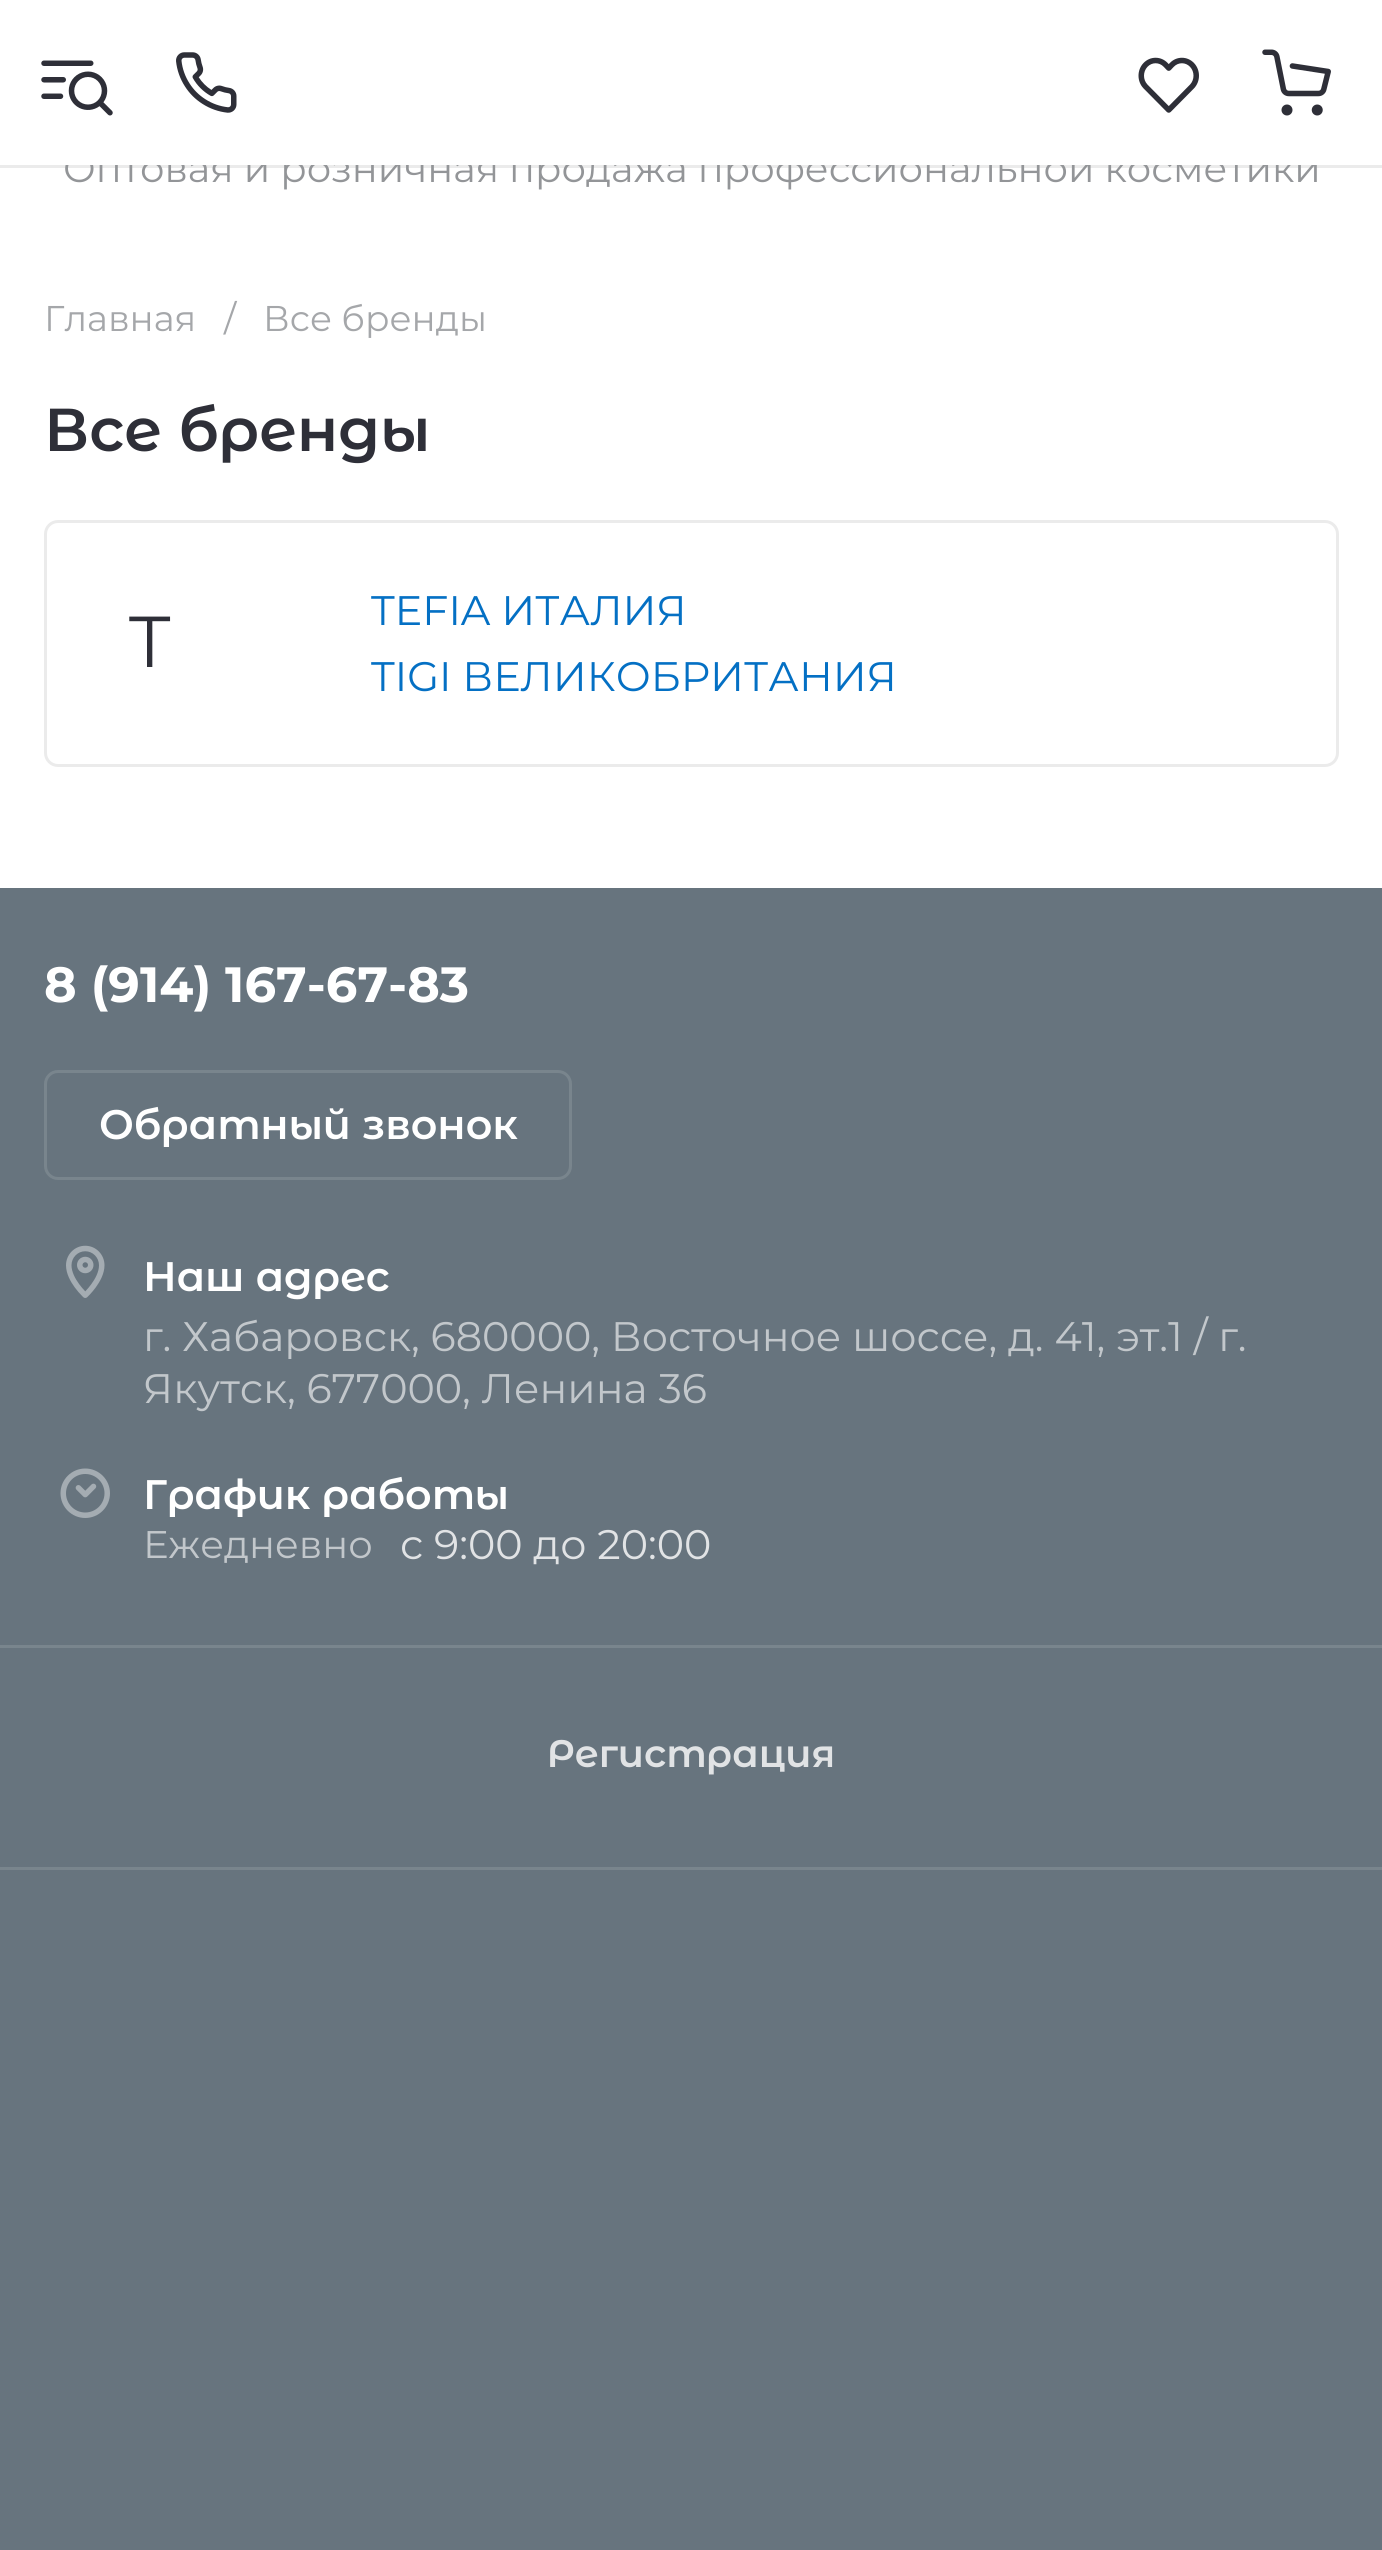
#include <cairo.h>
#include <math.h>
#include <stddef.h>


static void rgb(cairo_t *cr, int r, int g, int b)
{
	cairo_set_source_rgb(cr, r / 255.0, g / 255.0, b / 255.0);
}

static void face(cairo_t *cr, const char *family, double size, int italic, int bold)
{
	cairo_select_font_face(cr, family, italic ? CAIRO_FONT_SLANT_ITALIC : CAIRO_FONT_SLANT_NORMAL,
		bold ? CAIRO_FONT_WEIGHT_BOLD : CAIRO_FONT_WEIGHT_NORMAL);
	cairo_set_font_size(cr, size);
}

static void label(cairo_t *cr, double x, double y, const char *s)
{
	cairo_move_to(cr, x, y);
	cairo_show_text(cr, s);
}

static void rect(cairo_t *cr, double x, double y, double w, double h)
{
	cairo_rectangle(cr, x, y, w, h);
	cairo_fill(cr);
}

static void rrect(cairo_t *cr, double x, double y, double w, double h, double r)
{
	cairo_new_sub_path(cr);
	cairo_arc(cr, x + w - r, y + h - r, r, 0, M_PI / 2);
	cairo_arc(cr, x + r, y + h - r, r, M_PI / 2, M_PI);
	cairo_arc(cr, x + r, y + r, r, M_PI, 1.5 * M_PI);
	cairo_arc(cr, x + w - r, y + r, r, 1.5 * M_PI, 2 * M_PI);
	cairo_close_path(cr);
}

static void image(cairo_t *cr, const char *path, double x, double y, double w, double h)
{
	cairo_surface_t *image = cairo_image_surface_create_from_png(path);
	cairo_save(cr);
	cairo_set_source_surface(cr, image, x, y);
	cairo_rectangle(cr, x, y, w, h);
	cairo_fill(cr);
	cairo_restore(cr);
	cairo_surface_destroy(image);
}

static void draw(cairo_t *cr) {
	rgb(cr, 255, 255, 255);
	cairo_paint(cr);
	cairo_set_source_rgba(cr, 0, 0, 0, 0.08);
	rect(cr, 0, 165, 1382, 3);
	face(cr, "Montserrat", 38.5, 0, 0);
	rgb(cr, 147, 149, 152);
	label(cr, 63, 182, "Оптовая и розничная продажа профессиональной косметики");
	rgb(cr, 255, 255, 255);
	rect(cr, 65, 153, 1252, 12);
	image(cr, "image0.png", 41, 60, 72, 56);
	image(cr, "image1.png", 176, 52, 61, 61);
	image(cr, "image2.png", 1138, 57, 61, 56);
	image(cr, "image3.png", 1262, 49, 69, 67);
	face(cr, "Montserrat", 35.75, 0, 0);
	rgb(cr, 165, 167, 170);
	label(cr, 44, 331, "Главная");
	label(cr, 224, 331, "/");
	label(cr, 263, 331, "Все бренды");
	face(cr, "Montserrat Alternates SemiBold", 60.5, 0, 0);
	rgb(cr, 46, 47, 56);
	label(cr, 44, 451, "Все бренды");
	rrect(cr, 45.5, 521.5, 1292, 244, 12.5);
	rgb(cr, 235, 235, 235);
	cairo_set_line_width(cr, 3);
	cairo_stroke(cr);
	face(cr, "Montserrat", 41.25, 0, 0);
	rgb(cr, 4, 112, 196);
	label(cr, 371, 625, "TEFIA ИТАЛИЯ");
	face(cr, "Montserrat", 72, 0, 0);
	rgb(cr, 46, 47, 56);
	label(cr, 129, 667, "T");
	face(cr, "Montserrat", 41.25, 0, 0);
	rgb(cr, 4, 112, 196);
	label(cr, 371, 691, "TIGI ВЕЛИКОБРИТАНИЯ");
	rgb(cr, 103, 116, 126);
	rect(cr, 0, 888, 1382, 1662);
	face(cr, "Montserrat Alternates", 49.5, 0, 1);
	rgb(cr, 255, 255, 255);
	label(cr, 44, 1002, "8 (914) 167-67-83");
	rrect(cr, 45.5, 1071.5, 525, 107, 12.5);
	rgb(cr, 121, 133, 141);
	cairo_stroke(cr);
	face(cr, "Montserrat Alternates SemiBold", 41.25, 0, 0);
	rgb(cr, 255, 255, 255);
	label(cr, 99, 1139, "Обратный звонок");
	image(cr, "image4.png", 66, 1245, 39, 53);
	label(cr, 143, 1291, "Наш адрес");
	face(cr, "Montserrat", 41.25, 0, 0);
	rgb(cr, 194, 199, 203);
	label(cr, 143, 1351, "г. Хабаровск, 680000, Восточное шоссе, д. 41, эт.1 / г.");
	label(cr, 143, 1403, "Якутск, 677000, Ленина 36");
	image(cr, "image5.png", 60, 1468, 50, 50);
	face(cr, "Montserrat Alternates SemiBold", 41.25, 0, 0);
	rgb(cr, 255, 255, 255);
	label(cr, 143, 1509, "График работы");
	face(cr, "Montserrat", 38.5, 0, 0);
	rgb(cr, 194, 199, 203);
	label(cr, 143, 1558, "Ежедневно");
	face(cr, "Montserrat", 41.25, 0, 0);
	rgb(cr, 225, 227, 229);
	label(cr, 400, 1559, "с 9:00 до 20:00");
	rgb(cr, 121, 133, 141);
	rect(cr, 0, 1645, 1382, 3);
	face(cr, "Montserrat Alternates SemiBold", 38.5, 0, 0);
	rgb(cr, 225, 227, 229);
	label(cr, 547, 1767, "Регистрация");
	rgb(cr, 121, 133, 141);
	rect(cr, 0, 1867, 1382, 3);
}

int main(void) {
	cairo_surface_t *surface = cairo_image_surface_create(CAIRO_FORMAT_RGB24, 1382, 2550);
	cairo_t *cr = cairo_create(surface);
	cairo_font_options_t *options = cairo_font_options_create();
	cairo_font_options_set_hint_metrics(options, CAIRO_HINT_METRICS_OFF);
	cairo_font_options_set_hint_style(options, CAIRO_HINT_STYLE_NONE);
	cairo_set_font_options(cr, options);
	cairo_set_miter_limit(cr, 4);
	draw(cr);
	cairo_surface_write_to_png(surface, "render.png");
	cairo_font_options_destroy(options);
	cairo_destroy(cr);
	cairo_surface_destroy(surface);
	return 0;
}
